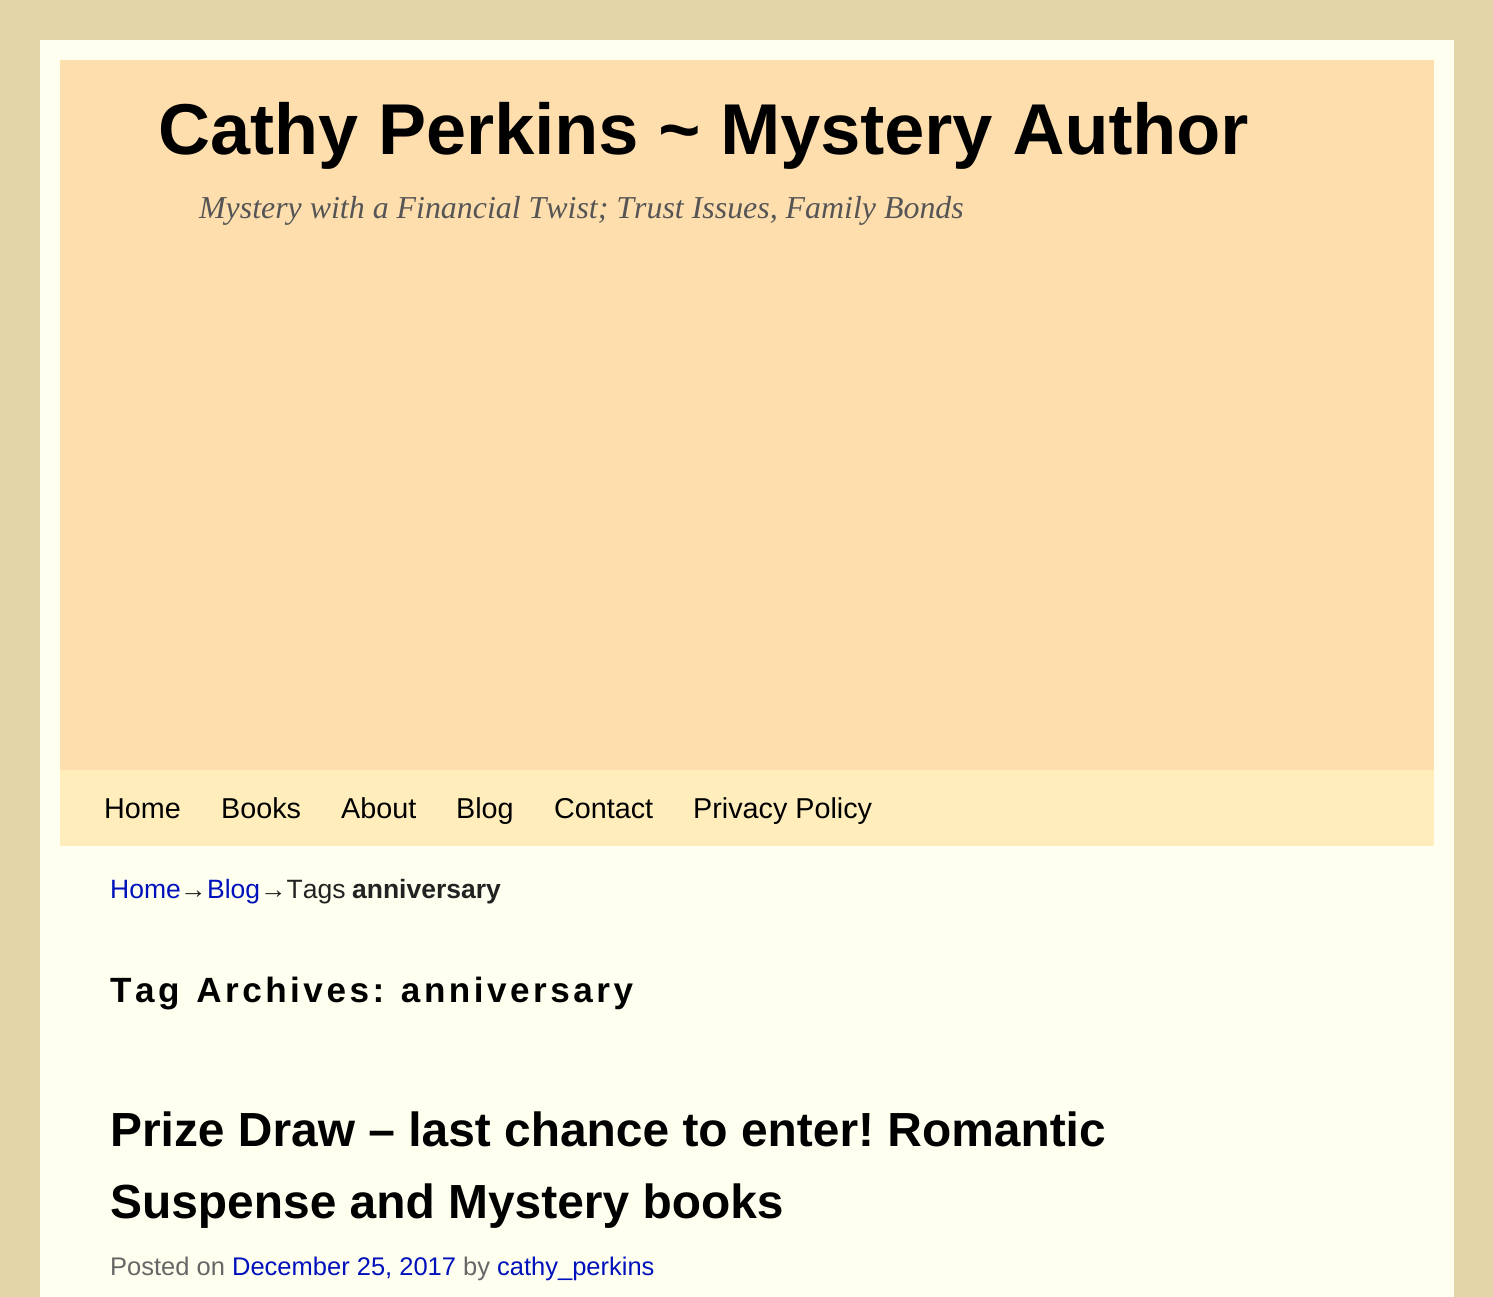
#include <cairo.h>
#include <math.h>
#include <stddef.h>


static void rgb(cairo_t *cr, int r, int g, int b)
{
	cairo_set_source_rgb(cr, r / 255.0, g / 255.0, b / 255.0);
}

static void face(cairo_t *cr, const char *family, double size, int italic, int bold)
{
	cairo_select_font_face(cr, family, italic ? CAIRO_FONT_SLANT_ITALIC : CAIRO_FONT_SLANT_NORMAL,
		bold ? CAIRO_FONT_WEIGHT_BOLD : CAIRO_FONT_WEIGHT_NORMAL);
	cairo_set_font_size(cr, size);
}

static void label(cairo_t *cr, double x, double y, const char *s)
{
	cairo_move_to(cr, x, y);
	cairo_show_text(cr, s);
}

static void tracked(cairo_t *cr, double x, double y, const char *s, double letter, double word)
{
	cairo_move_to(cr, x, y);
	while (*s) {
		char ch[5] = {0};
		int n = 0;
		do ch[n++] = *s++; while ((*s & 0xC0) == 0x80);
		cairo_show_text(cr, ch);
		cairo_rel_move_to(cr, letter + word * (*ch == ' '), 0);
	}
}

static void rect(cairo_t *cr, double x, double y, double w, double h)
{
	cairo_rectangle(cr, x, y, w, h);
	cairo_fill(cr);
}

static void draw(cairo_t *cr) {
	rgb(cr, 227, 213, 167);
	cairo_paint(cr);
	rgb(cr, 255, 255, 240);
	rect(cr, 40, 40, 1414, 1257);
	rgb(cr, 255, 222, 173);
	rect(cr, 60, 60, 1374, 710);
	face(cr, "Liberation Sans", 72, 0, 1);
	rgb(cr, 0, 0, 0);
	label(cr, 158, 154, "Cathy Perkins ~ Mystery Author");
	face(cr, "Liberation Serif", 31.9, 1, 0);
	rgb(cr, 85, 85, 85);
	label(cr, 199, 218, "Mystery with a Financial Twist; Trust Issues, Family Bonds");
	rgb(cr, 255, 238, 187);
	rect(cr, 60, 770, 1374, 76);
	face(cr, "Liberation Sans", 28.75, 0, 0);
	rgb(cr, 0, 0, 0);
	label(cr, 104, 818, "Home");
	label(cr, 221, 818, "Books");
	label(cr, 341, 818, "About");
	label(cr, 456, 818, "Blog");
	label(cr, 554, 818, "Contact");
	label(cr, 693, 818, "Privacy Policy");
	face(cr, "Liberation Sans", 26.5, 0, 0);
	rgb(cr, 0, 17, 187);
	label(cr, 110, 898, "Home");
	rgb(cr, 34, 34, 34);
	label(cr, 180, 898, "→");
	rgb(cr, 0, 17, 187);
	label(cr, 207, 898, "Blog");
	rgb(cr, 34, 34, 34);
	label(cr, 260, 898, "→Tags");
	face(cr, "Liberation Sans", 26.5, 0, 1);
	label(cr, 352, 898, "anniversary");
	face(cr, "Liberation Sans", 35.1, 0, 1);
	rgb(cr, 0, 0, 0);
	tracked(cr, 110, 1002, "Tag Archives: anniversary", 3.5, 0);
	face(cr, "Liberation Sans", 47.9, 0, 1);
	label(cr, 110, 1146, "Prize Draw – last chance to enter! Romantic");
	label(cr, 110, 1218, "Suspense and Mystery books");
	face(cr, "Liberation Sans", 25.5, 0, 0);
	rgb(cr, 102, 102, 102);
	label(cr, 110, 1275, "Posted on");
	rgb(cr, 0, 17, 187);
	label(cr, 232, 1275, "December 25, 2017");
	rgb(cr, 102, 102, 102);
	label(cr, 463, 1275, "by");
	rgb(cr, 0, 17, 187);
	label(cr, 497, 1275, "cathy_perkins");
}

int main(void) {
	cairo_surface_t *surface = cairo_image_surface_create(CAIRO_FORMAT_RGB24, 1493, 1297);
	cairo_t *cr = cairo_create(surface);
	cairo_font_options_t *options = cairo_font_options_create();
	cairo_font_options_set_hint_metrics(options, CAIRO_HINT_METRICS_OFF);
	cairo_font_options_set_hint_style(options, CAIRO_HINT_STYLE_NONE);
	cairo_set_font_options(cr, options);
	cairo_set_miter_limit(cr, 4);
	draw(cr);
	cairo_surface_write_to_png(surface, "render.png");
	cairo_font_options_destroy(options);
	cairo_destroy(cr);
	cairo_surface_destroy(surface);
	return 0;
}
